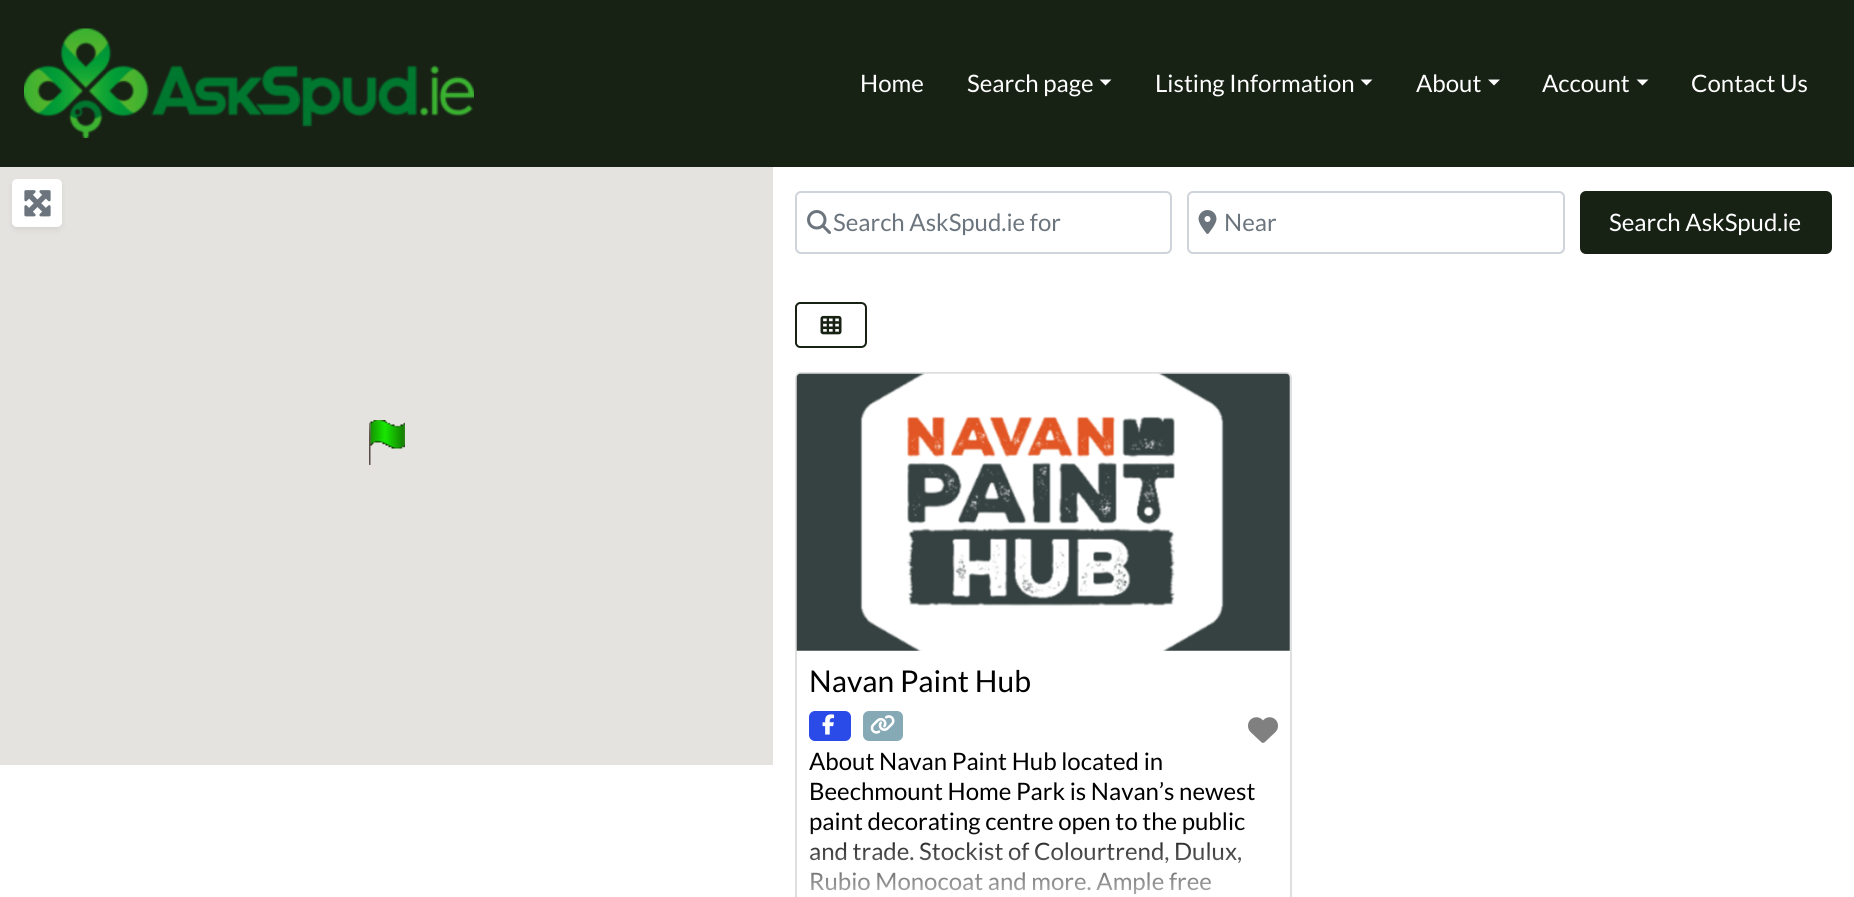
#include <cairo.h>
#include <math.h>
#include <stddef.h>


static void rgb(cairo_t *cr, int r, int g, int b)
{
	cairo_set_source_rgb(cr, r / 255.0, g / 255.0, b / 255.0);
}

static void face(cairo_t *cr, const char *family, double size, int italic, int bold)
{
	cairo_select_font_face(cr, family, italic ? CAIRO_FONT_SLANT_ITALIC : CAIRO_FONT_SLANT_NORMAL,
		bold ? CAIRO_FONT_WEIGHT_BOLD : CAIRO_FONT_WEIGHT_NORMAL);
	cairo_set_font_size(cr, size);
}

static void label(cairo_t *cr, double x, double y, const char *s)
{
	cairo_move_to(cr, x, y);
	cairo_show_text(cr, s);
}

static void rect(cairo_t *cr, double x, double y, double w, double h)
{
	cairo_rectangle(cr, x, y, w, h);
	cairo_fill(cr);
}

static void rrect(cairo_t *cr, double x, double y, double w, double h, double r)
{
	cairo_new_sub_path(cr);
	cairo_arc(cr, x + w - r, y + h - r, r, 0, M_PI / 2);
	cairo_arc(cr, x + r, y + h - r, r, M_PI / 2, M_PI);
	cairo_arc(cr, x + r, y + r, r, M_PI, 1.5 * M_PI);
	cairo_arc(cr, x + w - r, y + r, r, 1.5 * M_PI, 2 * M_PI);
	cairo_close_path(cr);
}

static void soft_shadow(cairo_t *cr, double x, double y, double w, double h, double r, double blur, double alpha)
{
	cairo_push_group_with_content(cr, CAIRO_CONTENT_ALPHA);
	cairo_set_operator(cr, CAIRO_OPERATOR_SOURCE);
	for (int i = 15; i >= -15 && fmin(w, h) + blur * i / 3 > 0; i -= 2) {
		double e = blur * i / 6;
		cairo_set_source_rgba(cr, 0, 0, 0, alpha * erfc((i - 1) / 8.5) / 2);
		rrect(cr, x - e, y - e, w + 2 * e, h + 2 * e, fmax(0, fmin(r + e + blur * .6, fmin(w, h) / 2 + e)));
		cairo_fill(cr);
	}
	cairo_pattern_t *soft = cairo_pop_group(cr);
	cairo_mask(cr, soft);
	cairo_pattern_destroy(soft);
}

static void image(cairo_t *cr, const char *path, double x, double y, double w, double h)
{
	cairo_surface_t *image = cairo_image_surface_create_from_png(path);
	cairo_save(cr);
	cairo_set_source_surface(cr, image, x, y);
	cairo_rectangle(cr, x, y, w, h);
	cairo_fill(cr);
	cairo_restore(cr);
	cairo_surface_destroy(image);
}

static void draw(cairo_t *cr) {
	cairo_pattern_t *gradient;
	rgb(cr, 255, 255, 255);
	cairo_paint(cr);
	rgb(cr, 23, 34, 21);
	rect(cr, 0, 0, 1854, 167);
	image(cr, "image0.png", 24, 28, 450, 110);
	face(cr, "Lato", 24, 0, 0);
	rgb(cr, 255, 255, 255);
	label(cr, 860, 92, "Home");
	label(cr, 967, 92, "Search page");
	cairo_new_path(cr);
	cairo_move_to(cr, 1099.5, 79.5);
	cairo_line_to(cr, 1111.5, 79.5);
	cairo_line_to(cr, 1105.5, 85.5);
	cairo_close_path(cr);
	cairo_fill(cr);
	label(cr, 1155, 92, "Listing Information");
	cairo_new_path(cr);
	cairo_move_to(cr, 1360.5, 79.5);
	cairo_line_to(cr, 1372.5, 79.5);
	cairo_line_to(cr, 1366.5, 85.5);
	cairo_close_path(cr);
	cairo_fill(cr);
	label(cr, 1416, 92, "About");
	cairo_new_path(cr);
	cairo_move_to(cr, 1488, 79.5);
	cairo_line_to(cr, 1500, 79.5);
	cairo_line_to(cr, 1494, 85.5);
	cairo_close_path(cr);
	cairo_fill(cr);
	label(cr, 1542, 92, "Account");
	cairo_new_path(cr);
	cairo_move_to(cr, 1636.5, 79.5);
	cairo_line_to(cr, 1648.5, 79.5);
	cairo_line_to(cr, 1642.5, 85.5);
	cairo_close_path(cr);
	cairo_fill(cr);
	label(cr, 1691, 92, "Contact Us");
	rgb(cr, 229, 227, 223);
	rect(cr, 0, 167, 773, 598);
	image(cr, "image1.png", 369, 420, 36, 45);
	rgb(cr, 0, 0, 0);
	soft_shadow(cr, 12, 182, 50, 48, 5, 3, 0.07);
	rgb(cr, 255, 255, 255);
	rrect(cr, 12, 179, 50, 48, 5);
	cairo_fill(cr);
	image(cr, "image2.png", 24, 190, 27, 27);
	rrect(cr, 796, 192, 375, 61, 5);
	rgb(cr, 206, 212, 218);
	cairo_stroke(cr);
	image(cr, "image3.png", 807, 210, 24, 24);
	rgb(cr, 108, 117, 125);
	label(cr, 833, 231, "Search AskSpud.ie for");
	rrect(cr, 1188, 192, 376, 61, 5);
	rgb(cr, 206, 212, 218);
	cairo_stroke(cr);
	image(cr, "image4.png", 1198, 210, 19, 24);
	rgb(cr, 108, 117, 125);
	label(cr, 1224, 231, "Near");
	rgb(cr, 23, 34, 21);
	rrect(cr, 1581, 192, 250, 61, 5);
	cairo_fill_preserve(cr);
	cairo_stroke(cr);
	rgb(cr, 255, 255, 255);
	label(cr, 1609, 231, "Search AskSpud.ie");
	cairo_new_path(cr);
	cairo_move_to(cr, 800, 303);
	cairo_line_to(cr, 861, 303);
	cairo_curve_to(cr, 864, 303, 866, 305, 866, 308);
	cairo_line_to(cr, 866, 342);
	cairo_curve_to(cr, 866, 345, 864, 347, 861, 347);
	cairo_line_to(cr, 800, 347);
	cairo_curve_to(cr, 798, 347, 796, 345, 796, 343);
	cairo_line_to(cr, 796, 307);
	cairo_curve_to(cr, 796, 305, 798, 303, 800, 303);
	cairo_close_path(cr);
	rgb(cr, 23, 34, 21);
	cairo_stroke(cr);
	image(cr, "image5.png", 820, 315, 22, 20);
	rrect(cr, 796, 373, 495, 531, 5);
	rgb(cr, 223, 223, 223);
	cairo_stroke(cr);
	image(cr, "image6.png", 796, 373, 494, 278);
	face(cr, "Lato", 30, 0, 0);
	rgb(cr, 0, 0, 0);
	label(cr, 809, 692, "Navan Paint Hub");
	rgb(cr, 43, 75, 232);
	rrect(cr, 809, 711, 42, 30, 6);
	cairo_fill(cr);
	image(cr, "image7.png", 822, 714, 13, 21);
	rgb(cr, 133, 169, 181);
	rrect(cr, 863, 711, 40, 30, 6);
	cairo_fill(cr);
	image(cr, "image8.png", 870, 715, 25, 19);
	image(cr, "image9.png", 1248, 717, 30, 26);
	face(cr, "Lato", 24, 0, 0);
	rgb(cr, 0, 0, 0);
	label(cr, 809, 770, "About Navan Paint Hub located in");
	label(cr, 809, 800, "Beechmount Home Park is Navan’s newest");
	label(cr, 809, 830, "paint decorating centre open to the public");
	label(cr, 809, 860, "and trade. Stockist of Colourtrend, Dulux,");
	label(cr, 809, 890, "Rubio Monocoat and more. Ample free");
	gradient = cairo_pattern_create_linear(1043, 825, 1043, 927);
	cairo_pattern_add_color_stop_rgba(gradient, 0, 1, 1, 1, 0);
	cairo_pattern_add_color_stop_rgba(gradient, 1, 1, 1, 1, 1);
	cairo_set_source(cr, gradient);
	cairo_pattern_destroy(gradient);
	rect(cr, 809, 827, 435, 68);
}

int main(void) {
	cairo_surface_t *surface = cairo_image_surface_create(CAIRO_FORMAT_RGB24, 1854, 897);
	cairo_t *cr = cairo_create(surface);
	cairo_font_options_t *options = cairo_font_options_create();
	cairo_font_options_set_hint_metrics(options, CAIRO_HINT_METRICS_OFF);
	cairo_font_options_set_hint_style(options, CAIRO_HINT_STYLE_NONE);
	cairo_set_font_options(cr, options);
	cairo_set_miter_limit(cr, 4);
	draw(cr);
	cairo_surface_write_to_png(surface, "render.png");
	cairo_font_options_destroy(options);
	cairo_destroy(cr);
	cairo_surface_destroy(surface);
	return 0;
}
